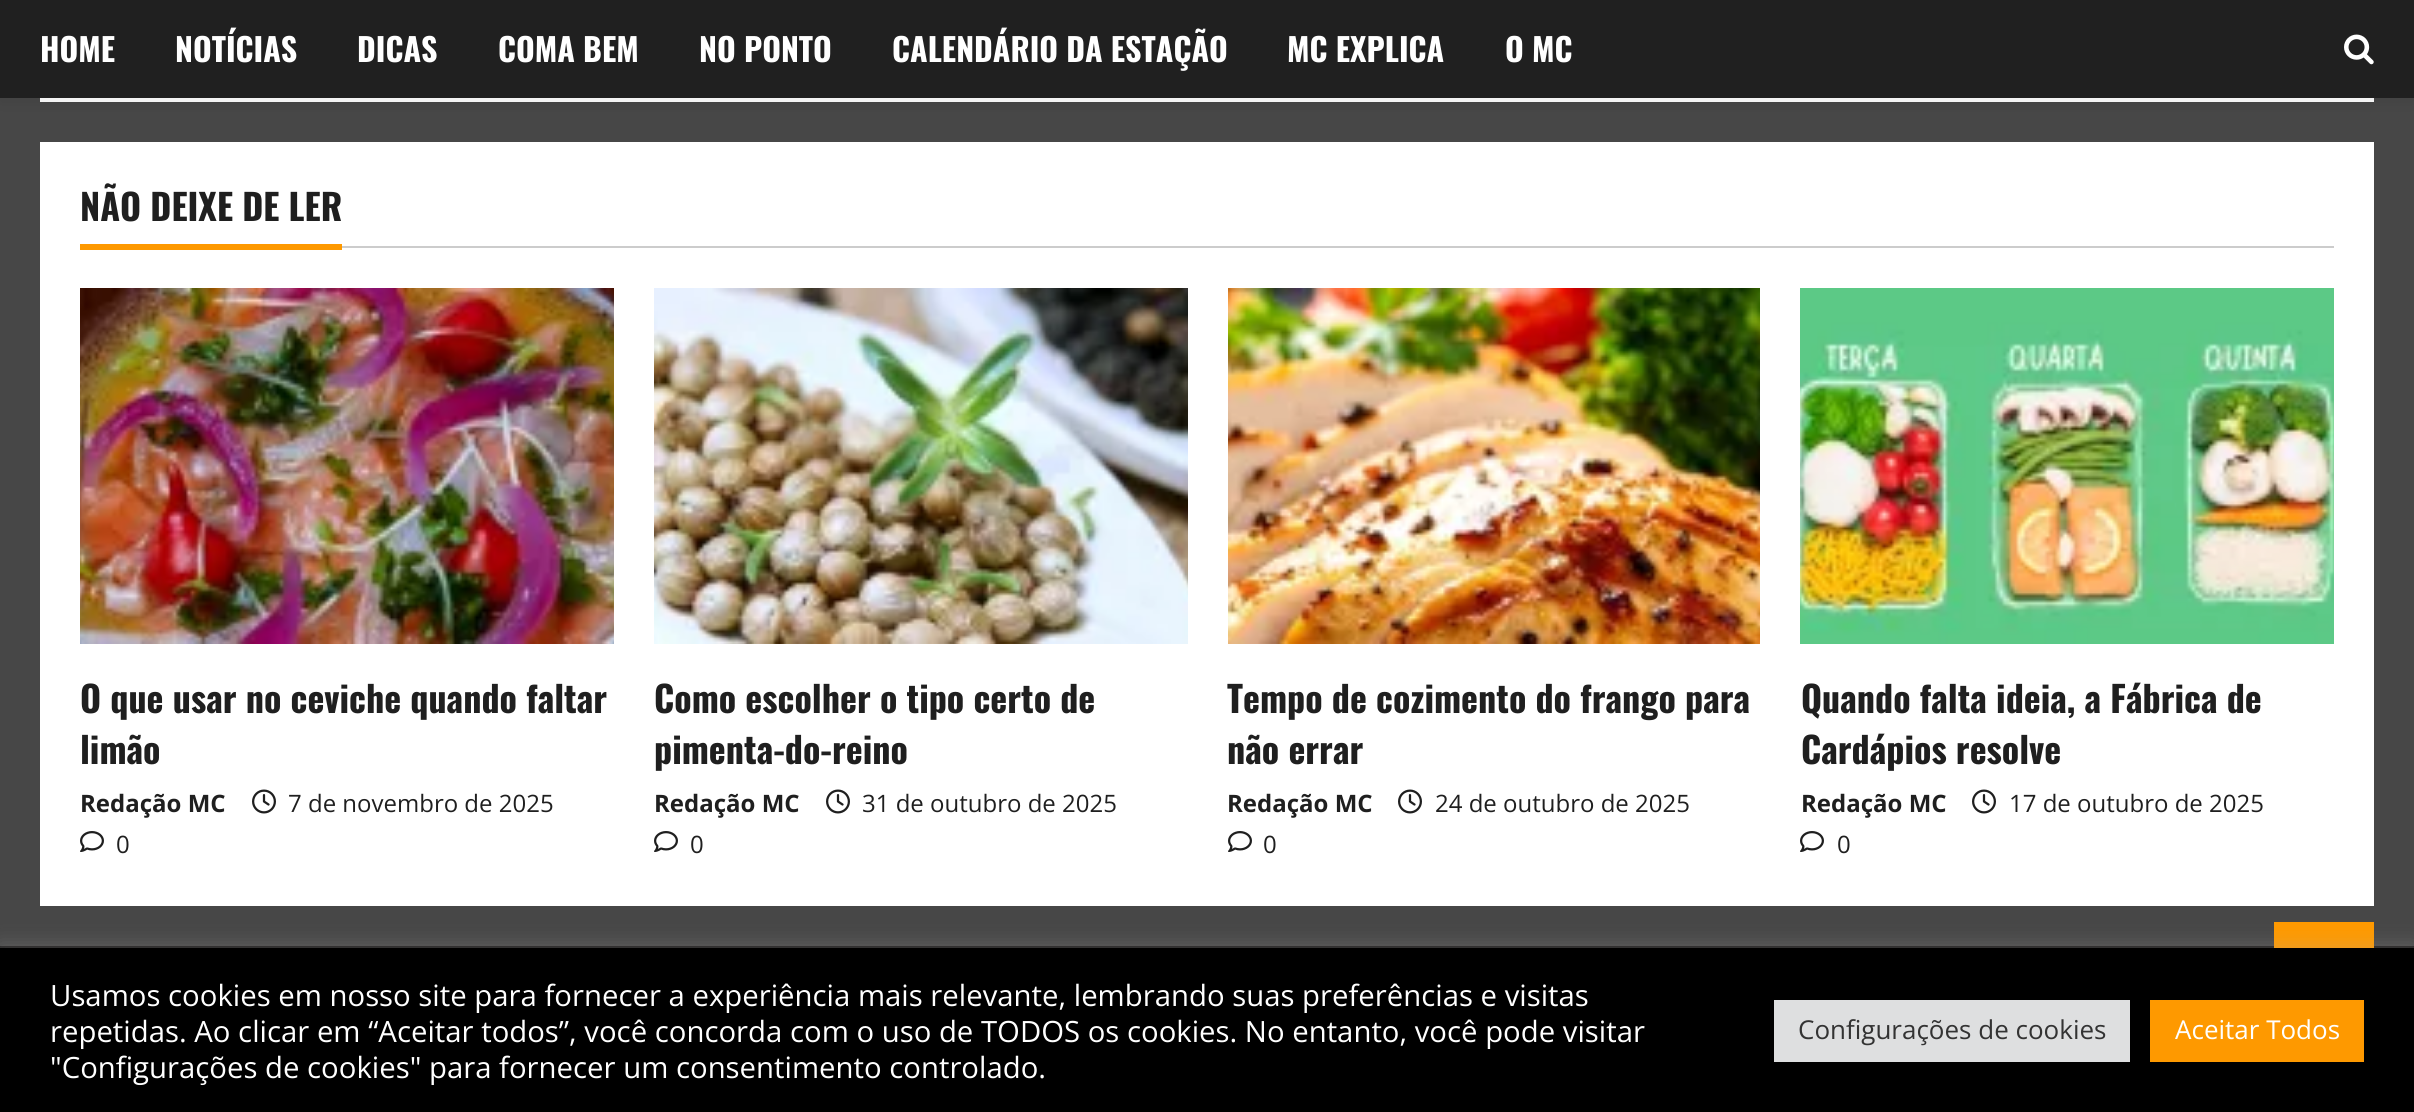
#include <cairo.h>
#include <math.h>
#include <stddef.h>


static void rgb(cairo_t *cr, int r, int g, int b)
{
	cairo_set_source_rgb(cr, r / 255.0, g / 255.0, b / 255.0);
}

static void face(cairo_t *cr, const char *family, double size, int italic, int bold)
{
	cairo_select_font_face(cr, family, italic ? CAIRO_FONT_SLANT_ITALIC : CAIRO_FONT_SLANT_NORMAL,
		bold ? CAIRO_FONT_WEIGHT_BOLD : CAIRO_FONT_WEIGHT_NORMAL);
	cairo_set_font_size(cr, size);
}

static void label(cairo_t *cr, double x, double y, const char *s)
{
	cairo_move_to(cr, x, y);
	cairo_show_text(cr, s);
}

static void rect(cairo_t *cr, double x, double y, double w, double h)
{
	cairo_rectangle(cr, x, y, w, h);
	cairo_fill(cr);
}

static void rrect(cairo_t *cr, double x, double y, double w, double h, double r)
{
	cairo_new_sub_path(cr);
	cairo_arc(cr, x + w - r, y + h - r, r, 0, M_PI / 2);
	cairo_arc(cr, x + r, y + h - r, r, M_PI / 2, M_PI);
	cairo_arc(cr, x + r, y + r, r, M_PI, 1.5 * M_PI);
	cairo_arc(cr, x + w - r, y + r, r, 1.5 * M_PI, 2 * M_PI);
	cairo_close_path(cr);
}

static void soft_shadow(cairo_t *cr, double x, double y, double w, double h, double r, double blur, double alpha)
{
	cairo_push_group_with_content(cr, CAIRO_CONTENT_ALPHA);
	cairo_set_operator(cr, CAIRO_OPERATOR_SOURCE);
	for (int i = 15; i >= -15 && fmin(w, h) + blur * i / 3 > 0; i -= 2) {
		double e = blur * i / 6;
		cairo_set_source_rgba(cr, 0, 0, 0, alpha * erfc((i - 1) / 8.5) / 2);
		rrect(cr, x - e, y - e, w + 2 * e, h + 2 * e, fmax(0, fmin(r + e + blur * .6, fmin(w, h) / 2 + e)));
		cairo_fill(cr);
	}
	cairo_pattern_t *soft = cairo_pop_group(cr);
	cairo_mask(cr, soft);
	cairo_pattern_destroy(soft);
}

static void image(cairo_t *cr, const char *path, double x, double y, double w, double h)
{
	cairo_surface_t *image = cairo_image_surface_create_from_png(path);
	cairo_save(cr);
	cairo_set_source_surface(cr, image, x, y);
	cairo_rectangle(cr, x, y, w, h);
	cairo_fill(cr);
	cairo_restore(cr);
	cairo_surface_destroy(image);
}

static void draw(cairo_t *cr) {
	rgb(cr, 71, 71, 71);
	cairo_paint(cr);
	rgb(cr, 255, 255, 255);
	rect(cr, 40, 98, 2334, 4);
	rgb(cr, 0, 0, 0);
	soft_shadow(cr, 0, 4, 2414, 98, 0, 8, 0.08);
	rgb(cr, 32, 32, 32);
	rect(cr, 0, 0, 2414, 98);
	face(cr, "Oswald", 32, 0, 1);
	rgb(cr, 255, 255, 255);
	label(cr, 40, 62, "HOME");
	label(cr, 175, 62, "NOTÍCIAS");
	label(cr, 357, 62, "DICAS");
	label(cr, 498, 62, "COMA BEM");
	label(cr, 699, 62, "NO PONTO");
	label(cr, 892, 62, "CALENDÁRIO DA ESTAÇÃO");
	label(cr, 1287, 62, "MC EXPLICA");
	label(cr, 1505, 62, "O MC");
	image(cr, "image0.png", 2344, 34, 30, 31);
	rect(cr, 40, 142, 2334, 764);
	rgb(cr, 204, 204, 204);
	rect(cr, 342, 246, 1992, 2);
	face(cr, "Oswald", 36, 0, 1);
	rgb(cr, 31, 31, 31);
	label(cr, 80, 221, "NÃO DEIXE DE LER");
	rgb(cr, 254, 153, 0);
	rect(cr, 80, 244, 262, 6);
	image(cr, "image1.png", 80, 288, 534, 356);
	rgb(cr, 31, 31, 31);
	label(cr, 80, 713, "O que usar no ceviche quando faltar");
	label(cr, 80, 764, "limão");
	face(cr, "Open Sans", 24, 0, 1);
	label(cr, 80, 812, "Redação MC");
	image(cr, "image2.png", 252, 789, 24, 25);
	face(cr, "Open Sans", 24, 0, 0);
	label(cr, 288, 812, "7 de novembro de 2025");
	image(cr, "image3.png", 80, 831, 24, 21);
	label(cr, 116, 853, "0");
	image(cr, "image4.png", 654, 288, 534, 356);
	face(cr, "Oswald", 36, 0, 1);
	label(cr, 654, 713, "Como escolher o tipo certo de");
	label(cr, 654, 764, "pimenta-do-reino");
	face(cr, "Open Sans", 24, 0, 1);
	label(cr, 654, 812, "Redação MC");
	image(cr, "image2.png", 826, 789, 24, 25);
	face(cr, "Open Sans", 24, 0, 0);
	label(cr, 862, 812, "31 de outubro de 2025");
	image(cr, "image3.png", 654, 831, 24, 21);
	label(cr, 690, 853, "0");
	image(cr, "image5.png", 1228, 288, 532, 356);
	face(cr, "Oswald", 36, 0, 1);
	label(cr, 1227, 713, "Tempo de cozimento do frango para");
	label(cr, 1227, 764, "não errar");
	face(cr, "Open Sans", 24, 0, 1);
	label(cr, 1227, 812, "Redação MC");
	image(cr, "image2.png", 1398, 789, 24, 25);
	face(cr, "Open Sans", 24, 0, 0);
	label(cr, 1435, 812, "24 de outubro de 2025");
	image(cr, "image3.png", 1228, 831, 24, 21);
	label(cr, 1263, 853, "0");
	image(cr, "image6.png", 1800, 288, 534, 356);
	face(cr, "Oswald", 36, 0, 1);
	label(cr, 1801, 713, "Quando falta ideia, a Fábrica de");
	label(cr, 1801, 764, "Cardápios resolve");
	face(cr, "Open Sans", 24, 0, 1);
	label(cr, 1801, 812, "Redação MC");
	image(cr, "image2.png", 1972, 789, 24, 25);
	face(cr, "Open Sans", 24, 0, 0);
	label(cr, 2009, 812, "17 de outubro de 2025");
	image(cr, "image3.png", 1800, 831, 24, 21);
	label(cr, 1837, 853, "0");
	rgb(cr, 27, 27, 27);
	rect(cr, 0, 946, 2414, 2);
	rgb(cr, 254, 153, 0);
	rect(cr, 2274, 922, 100, 26);
	rgb(cr, 172, 171, 171);
	soft_shadow(cr, 0, 946, 2414, 164, 0, 10, 0.3);
	rgb(cr, 0, 0, 0);
	rect(cr, 0, 948, 2414, 164);
	face(cr, "Open Sans", 29.33, 0, 0);
	rgb(cr, 255, 255, 255);
	label(cr, 50, 1006, "Usamos cookies em nosso site para fornecer a experiência mais relevante, lembrando suas preferências e visitas");
	label(cr, 50, 1042, "repetidas. Ao clicar em “Aceitar todos”, você concorda com o uso de TODOS os cookies. No entanto, você pode visitar");
	label(cr, 50, 1078, "\"Configurações de cookies\" para fornecer um consentimento controlado.");
	rgb(cr, 222, 223, 224);
	rect(cr, 1774, 1000, 356, 62);
	face(cr, "Open Sans", 26, 0, 0);
	rgb(cr, 51, 51, 51);
	label(cr, 1798, 1039, "Configurações de cookies");
	rgb(cr, 254, 153, 0);
	rect(cr, 2150, 1000, 214, 62);
	rgb(cr, 255, 255, 255);
	label(cr, 2175, 1039, "Aceitar Todos");
}

int main(void) {
	cairo_surface_t *surface = cairo_image_surface_create(CAIRO_FORMAT_RGB24, 2414, 1112);
	cairo_t *cr = cairo_create(surface);
	cairo_font_options_t *options = cairo_font_options_create();
	cairo_font_options_set_hint_metrics(options, CAIRO_HINT_METRICS_OFF);
	cairo_font_options_set_hint_style(options, CAIRO_HINT_STYLE_NONE);
	cairo_set_font_options(cr, options);
	cairo_set_miter_limit(cr, 4);
	draw(cr);
	cairo_surface_write_to_png(surface, "render.png");
	cairo_font_options_destroy(options);
	cairo_destroy(cr);
	cairo_surface_destroy(surface);
	return 0;
}
